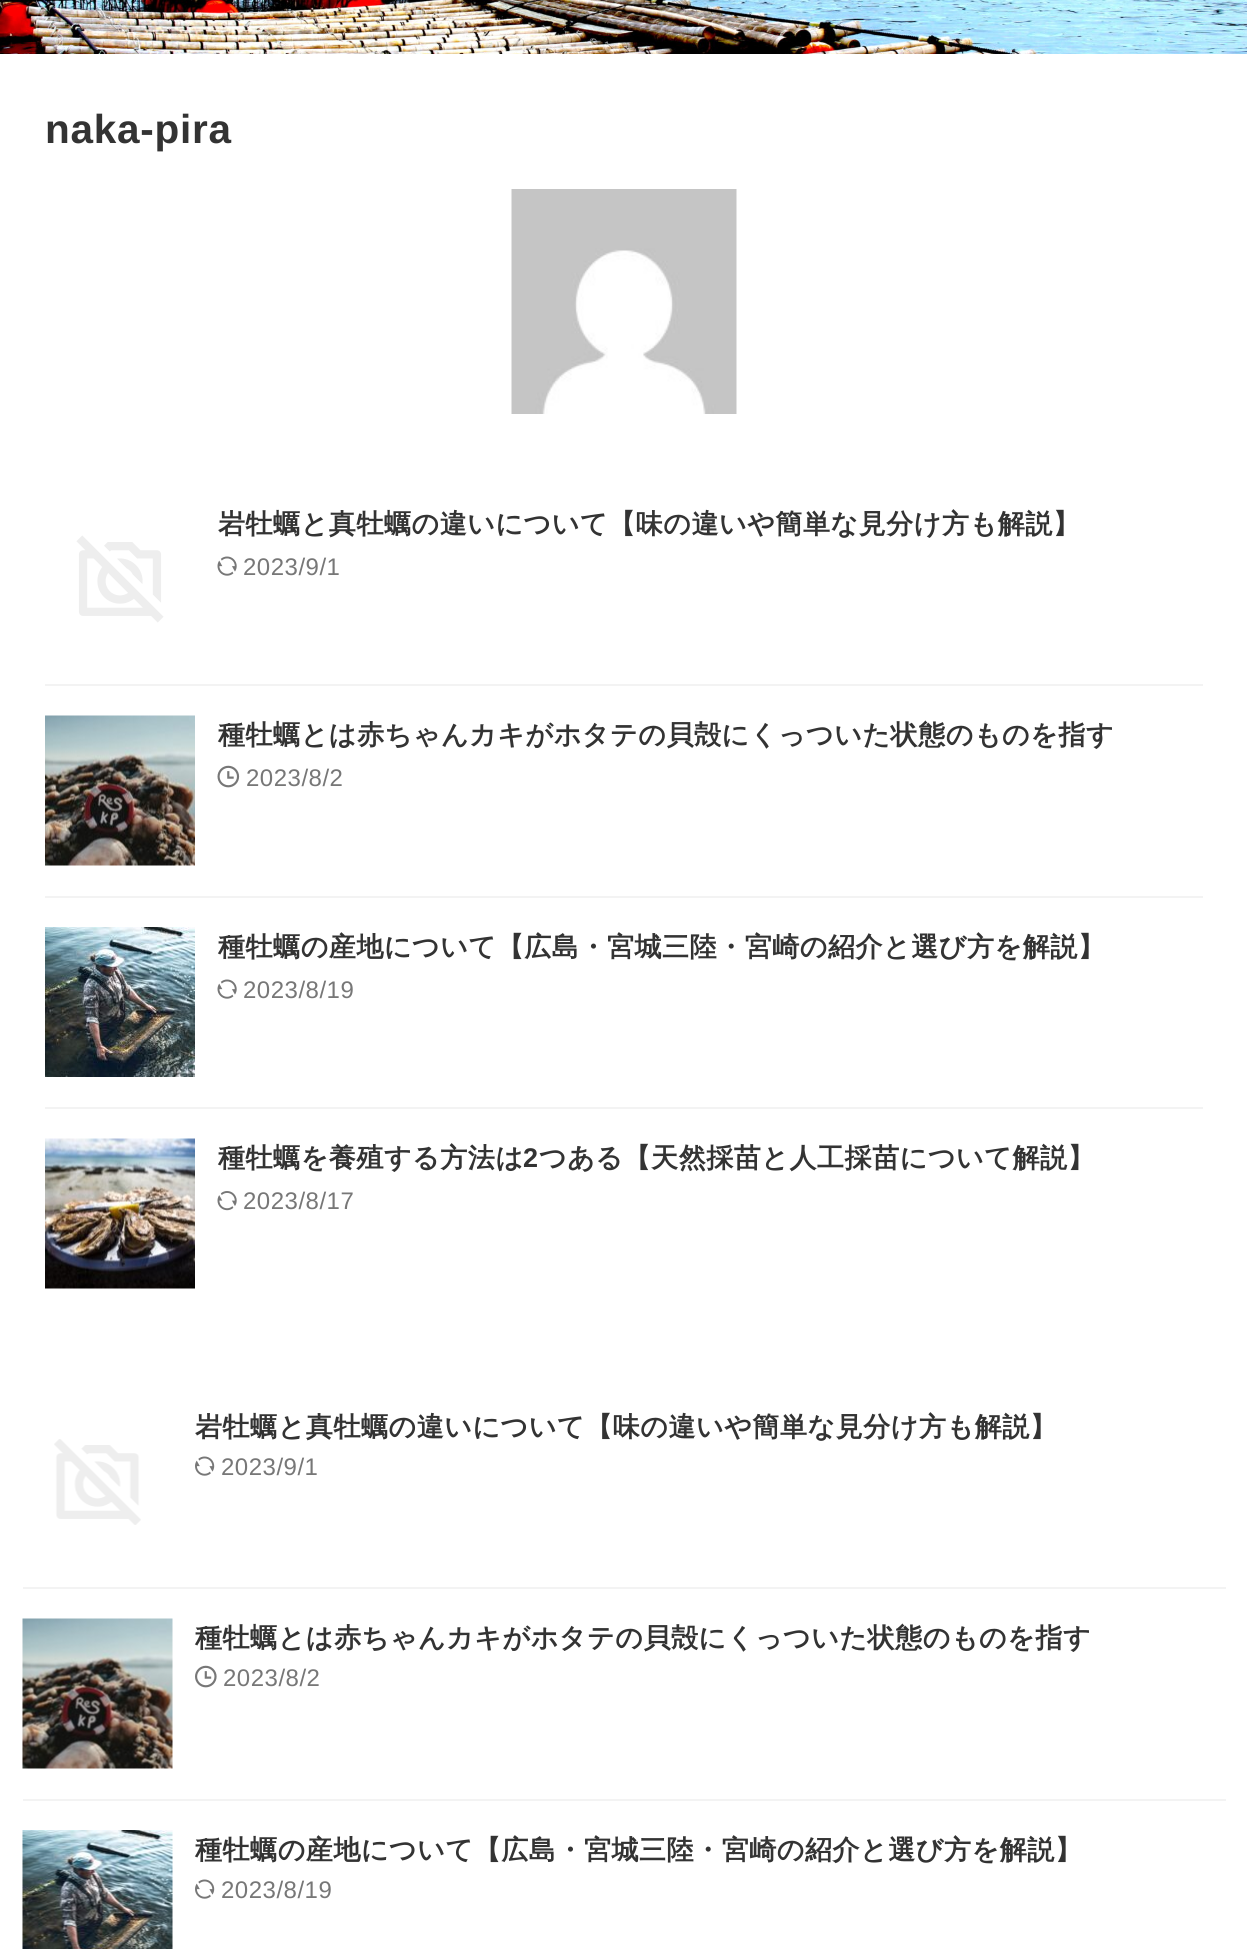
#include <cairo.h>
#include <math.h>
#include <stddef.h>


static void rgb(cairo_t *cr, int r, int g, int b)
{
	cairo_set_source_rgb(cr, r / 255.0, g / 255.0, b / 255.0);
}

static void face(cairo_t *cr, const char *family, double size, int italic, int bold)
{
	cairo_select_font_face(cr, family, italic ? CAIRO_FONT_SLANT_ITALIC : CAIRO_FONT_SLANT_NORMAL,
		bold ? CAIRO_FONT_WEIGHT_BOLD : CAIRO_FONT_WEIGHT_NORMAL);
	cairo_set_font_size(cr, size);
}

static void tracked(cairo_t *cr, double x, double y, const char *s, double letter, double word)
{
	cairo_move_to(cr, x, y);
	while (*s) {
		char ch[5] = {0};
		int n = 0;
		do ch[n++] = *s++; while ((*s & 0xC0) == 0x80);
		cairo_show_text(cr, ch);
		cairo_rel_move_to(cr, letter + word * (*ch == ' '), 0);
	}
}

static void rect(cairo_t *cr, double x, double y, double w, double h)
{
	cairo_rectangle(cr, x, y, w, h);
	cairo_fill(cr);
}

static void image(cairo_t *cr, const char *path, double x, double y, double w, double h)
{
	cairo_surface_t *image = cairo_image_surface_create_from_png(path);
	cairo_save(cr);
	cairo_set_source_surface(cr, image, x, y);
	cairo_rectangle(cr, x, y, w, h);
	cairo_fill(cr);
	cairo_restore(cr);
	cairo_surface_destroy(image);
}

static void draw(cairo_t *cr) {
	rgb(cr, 255, 255, 255);
	cairo_paint(cr);
	image(cr, "image0.png", 0, 0, 1247, 54);
	face(cr, "Liberation Sans", 40.5, 0, 1);
	rgb(cr, 51, 51, 51);
	tracked(cr, 45, 143, "naka-pira", 0.75, 0);
	image(cr, "image1.png", 511, 189, 226, 225);
	rgb(cr, 243, 243, 243);
	rect(cr, 45, 684, 1158, 2);
	image(cr, "image2.png", 76, 535, 88, 88);
	face(cr, "WenQuanYi Zen Hei", 27, 0, 1);
	rgb(cr, 51, 51, 51);
	tracked(cr, 218, 533, "岩牡蠣と真牡蠣の違いについて【味の違いや簡単な見分け方も解説】", 0.55, 0);
	image(cr, "image3.png", 217, 556, 20, 20);
	face(cr, "Liberation Sans", 24, 0, 0);
	rgb(cr, 119, 119, 119);
	tracked(cr, 243, 575, "2023/9/1", 0.5, 0);
	rgb(cr, 243, 243, 243);
	rect(cr, 45, 896, 1158, 2);
	image(cr, "image4.png", 45, 715, 150, 151);
	face(cr, "WenQuanYi Zen Hei", 27, 0, 1);
	rgb(cr, 51, 51, 51);
	tracked(cr, 218, 744, "種牡蠣とは赤ちゃんカキがホタテの貝殻にくっついた状態のものを指す", 0.55, 0);
	image(cr, "image5.png", 217, 765, 23, 23);
	face(cr, "Liberation Sans", 24, 0, 0);
	rgb(cr, 119, 119, 119);
	tracked(cr, 246, 786, "2023/8/2", 0.5, 0);
	rgb(cr, 243, 243, 243);
	rect(cr, 45, 1107, 1158, 2);
	image(cr, "image6.png", 45, 927, 150, 150);
	face(cr, "WenQuanYi Zen Hei", 27, 0, 1);
	rgb(cr, 51, 51, 51);
	tracked(cr, 218, 956, "種牡蠣の産地について【広島・宮城三陸・宮崎の紹介と選び方を解説】", 0.55, 0);
	image(cr, "image3.png", 217, 979, 20, 20);
	face(cr, "Liberation Sans", 24, 0, 0);
	rgb(cr, 119, 119, 119);
	tracked(cr, 243, 998, "2023/8/19", 0.5, 0);
	image(cr, "image7.png", 45, 1138, 150, 151);
	face(cr, "WenQuanYi Zen Hei", 27, 0, 1);
	rgb(cr, 51, 51, 51);
	tracked(cr, 218, 1167, "種牡蠣を養殖する方法は", 0.55, 0);
	face(cr, "Liberation Sans", 27, 0, 1);
	tracked(cr, 523, 1167, "2", 0.55, 0);
	face(cr, "WenQuanYi Zen Hei", 27, 0, 1);
	tracked(cr, 539, 1167, "つある【天然採苗と人工採苗について解説】", 0.55, 0);
	image(cr, "image8.png", 217, 1191, 20, 20);
	face(cr, "Liberation Sans", 24, 0, 0);
	rgb(cr, 119, 119, 119);
	tracked(cr, 243, 1209, "2023/8/17", 0.5, 0);
	rgb(cr, 243, 243, 243);
	rect(cr, 23, 1587, 1203, 2);
	image(cr, "image9.png", 54, 1439, 87, 86);
	face(cr, "WenQuanYi Zen Hei", 27, 0, 1);
	rgb(cr, 51, 51, 51);
	tracked(cr, 195, 1436, "岩牡蠣と真牡蠣の違いについて【味の違いや簡単な見分け方も解説】", 0.55, 0);
	image(cr, "image10.png", 195, 1456, 20, 20);
	face(cr, "Liberation Sans", 24, 0, 0);
	rgb(cr, 119, 119, 119);
	tracked(cr, 221, 1475, "2023/9/1", 0.5, 0);
	rgb(cr, 243, 243, 243);
	rect(cr, 23, 1799, 1203, 2);
	image(cr, "image11.png", 22, 1618, 151, 151);
	face(cr, "WenQuanYi Zen Hei", 27, 0, 1);
	rgb(cr, 51, 51, 51);
	tracked(cr, 195, 1647, "種牡蠣とは赤ちゃんカキがホタテの貝殻にくっついた状態のものを指す", 0.55, 0);
	image(cr, "image12.png", 195, 1665, 22, 23);
	face(cr, "Liberation Sans", 24, 0, 0);
	rgb(cr, 119, 119, 119);
	tracked(cr, 223, 1686, "2023/8/2", 0.5, 0);
	image(cr, "image13.png", 22, 1830, 151, 119);
	face(cr, "WenQuanYi Zen Hei", 27, 0, 1);
	rgb(cr, 51, 51, 51);
	tracked(cr, 195, 1859, "種牡蠣の産地について【広島・宮城三陸・宮崎の紹介と選び方を解説】", 0.55, 0);
	image(cr, "image10.png", 195, 1879, 20, 20);
	face(cr, "Liberation Sans", 24, 0, 0);
	rgb(cr, 119, 119, 119);
	tracked(cr, 221, 1898, "2023/8/19", 0.5, 0);
}

int main(void) {
	cairo_surface_t *surface = cairo_image_surface_create(CAIRO_FORMAT_RGB24, 1247, 1949);
	cairo_t *cr = cairo_create(surface);
	cairo_font_options_t *options = cairo_font_options_create();
	cairo_font_options_set_hint_metrics(options, CAIRO_HINT_METRICS_OFF);
	cairo_font_options_set_hint_style(options, CAIRO_HINT_STYLE_NONE);
	cairo_set_font_options(cr, options);
	cairo_set_miter_limit(cr, 4);
	draw(cr);
	cairo_surface_write_to_png(surface, "render.png");
	cairo_font_options_destroy(options);
	cairo_destroy(cr);
	cairo_surface_destroy(surface);
	return 0;
}
